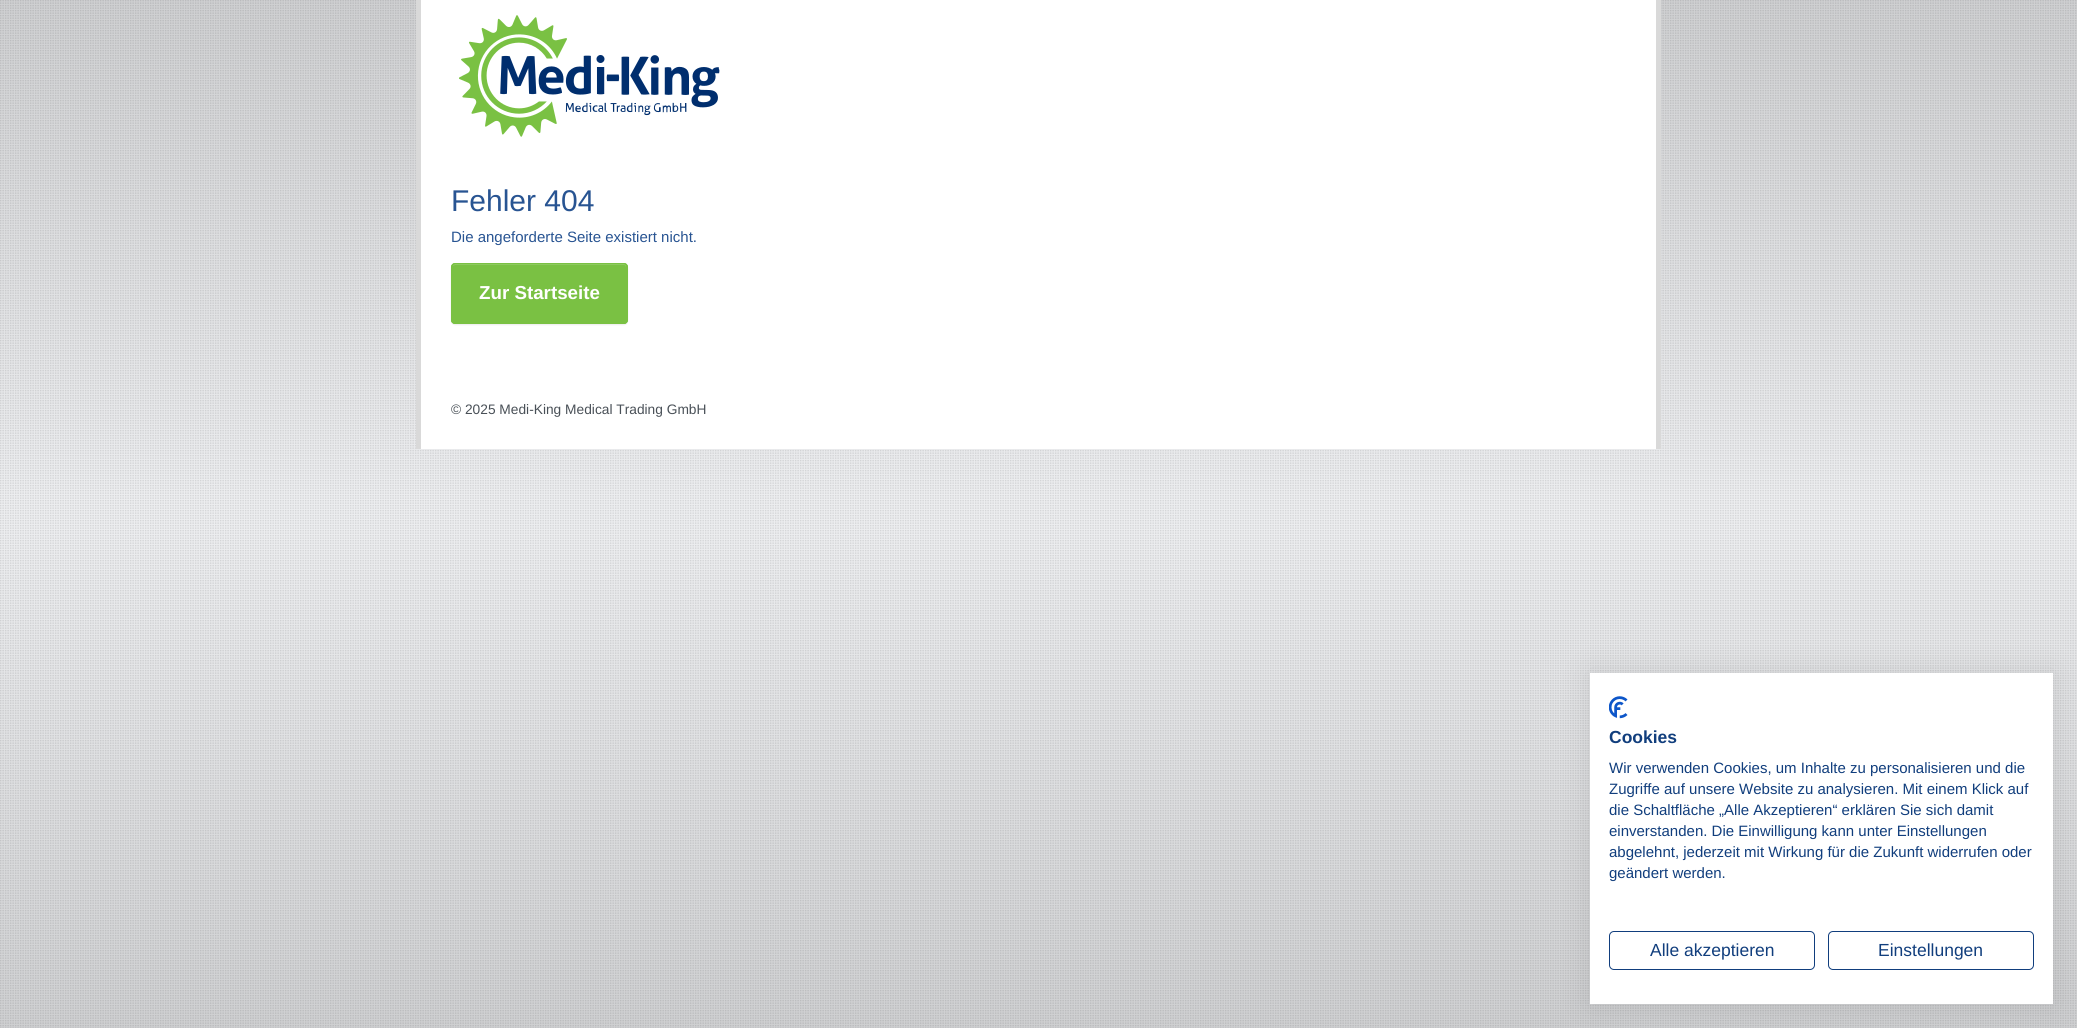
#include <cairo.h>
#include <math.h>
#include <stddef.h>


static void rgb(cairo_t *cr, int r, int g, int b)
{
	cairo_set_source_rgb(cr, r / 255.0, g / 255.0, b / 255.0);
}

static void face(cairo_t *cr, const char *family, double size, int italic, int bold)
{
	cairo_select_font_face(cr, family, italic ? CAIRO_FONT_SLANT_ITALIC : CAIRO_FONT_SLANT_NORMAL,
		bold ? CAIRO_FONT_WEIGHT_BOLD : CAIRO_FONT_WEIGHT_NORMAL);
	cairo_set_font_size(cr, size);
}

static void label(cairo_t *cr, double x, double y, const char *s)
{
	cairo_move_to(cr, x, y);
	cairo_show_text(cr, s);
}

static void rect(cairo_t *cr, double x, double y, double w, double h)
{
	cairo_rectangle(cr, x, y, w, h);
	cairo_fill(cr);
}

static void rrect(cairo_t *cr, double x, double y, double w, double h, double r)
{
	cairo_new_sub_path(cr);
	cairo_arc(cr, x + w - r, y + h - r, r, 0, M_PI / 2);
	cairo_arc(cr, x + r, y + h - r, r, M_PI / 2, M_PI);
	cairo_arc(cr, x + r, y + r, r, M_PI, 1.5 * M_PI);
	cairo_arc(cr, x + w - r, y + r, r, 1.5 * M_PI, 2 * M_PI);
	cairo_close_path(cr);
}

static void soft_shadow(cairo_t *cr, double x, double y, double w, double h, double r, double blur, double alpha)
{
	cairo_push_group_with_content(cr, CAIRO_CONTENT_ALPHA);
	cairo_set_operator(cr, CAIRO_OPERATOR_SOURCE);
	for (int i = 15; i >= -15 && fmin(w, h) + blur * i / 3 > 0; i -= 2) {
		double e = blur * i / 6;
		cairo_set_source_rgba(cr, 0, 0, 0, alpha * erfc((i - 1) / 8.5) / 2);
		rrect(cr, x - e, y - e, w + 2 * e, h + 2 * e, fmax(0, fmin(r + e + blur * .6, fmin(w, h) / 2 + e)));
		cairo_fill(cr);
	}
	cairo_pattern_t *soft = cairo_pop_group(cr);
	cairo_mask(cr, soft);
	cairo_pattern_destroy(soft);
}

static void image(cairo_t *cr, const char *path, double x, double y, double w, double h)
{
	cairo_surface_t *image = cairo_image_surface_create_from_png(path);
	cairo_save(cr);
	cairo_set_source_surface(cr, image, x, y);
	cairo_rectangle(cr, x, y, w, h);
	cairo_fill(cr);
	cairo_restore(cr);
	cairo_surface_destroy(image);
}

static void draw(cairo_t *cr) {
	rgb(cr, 255, 255, 255);
	cairo_paint(cr);
	image(cr, "image0.png", 0, 0, 2077, 1028);
	rgb(cr, 255, 255, 255);
	rect(cr, 421, 0, 1235, 449);
	rgb(cr, 217, 217, 217);
	rect(cr, 1656, 0, 5, 449);
	rect(cr, 416, 0, 5, 449);
	image(cr, "image1.png", 459, 15, 261, 122);
	face(cr, "Liberation Sans", 30, 0, 0);
	rgb(cr, 40, 84, 146);
	label(cr, 451, 211, "Fehler 404");
	face(cr, "Liberation Sans", 15, 0, 0);
	label(cr, 451, 242, "Die angeforderte Seite existiert nicht.");
	rgb(cr, 0, 0, 0);
	soft_shadow(cr, 451, 264, 177, 61, 4, 0.5, 0.07);
	rgb(cr, 122, 193, 67);
	rrect(cr, 451, 263, 177, 61, 4);
	cairo_fill(cr);
	rgb(cr, 142, 202, 95);
	cairo_new_path(cr);
	cairo_move_to(cr, 455, 265);
	cairo_line_to(cr, 624, 265);
	cairo_curve_to(cr, 625, 265, 626, 266, 626, 268);
	cairo_line_to(cr, 626, 266);
	cairo_curve_to(cr, 626, 265, 625, 264, 624, 264);
	cairo_line_to(cr, 456, 264);
	cairo_curve_to(cr, 454, 264, 453, 265, 453, 266);
	cairo_close_path(cr);
	cairo_fill(cr);
	rrect(cr, 451.5, 263.5, 176, 60, 3.5);
	rgb(cr, 122, 193, 67);
	cairo_set_line_width(cr, 1);
	cairo_stroke(cr);
	face(cr, "Liberation Sans", 18.75, 0, 1);
	rgb(cr, 255, 255, 255);
	label(cr, 479, 299, "Zur Startseite");
	face(cr, "Liberation Sans", 13.75, 0, 0);
	rgb(cr, 73, 80, 87);
	label(cr, 451, 414, "© 2025 Medi-King Medical Trading GmbH");
	rgb(cr, 0, 0, 0);
	soft_shadow(cr, 1590, 673, 463, 331, 0, 15, 0.1);
	rgb(cr, 255, 255, 255);
	rect(cr, 1590, 673, 463, 331);
	image(cr, "image2.png", 1609, 696, 19, 23);
	face(cr, "Liberation Sans", 17.5, 0, 1);
	rgb(cr, 17, 62, 125);
	label(cr, 1609, 743, "Cookies");
	face(cr, "Liberation Sans", 15, 0, 0);
	label(cr, 1609, 773, "Wir verwenden Cookies, um Inhalte zu personalisieren und die");
	label(cr, 1609, 794, "Zugriffe auf unsere Website zu analysieren. Mit einem Klick auf");
	label(cr, 1609, 815, "die Schaltfläche „Alle Akzeptieren“ erklären Sie sich damit");
	label(cr, 1609, 836, "einverstanden. Die Einwilligung kann unter Einstellungen");
	label(cr, 1609, 857, "abgelehnt, jederzeit mit Wirkung für die Zukunft widerrufen oder");
	label(cr, 1609, 878, "geändert werden.");
	rrect(cr, 1609.5, 931.5, 205, 38, 4.5);
	cairo_stroke(cr);
	face(cr, "Liberation Sans", 17.5, 0, 0);
	label(cr, 1650, 956, "Alle akzeptieren");
	rrect(cr, 1828.5, 931.5, 205, 38, 4.5);
	cairo_stroke(cr);
	label(cr, 1878, 956, "Einstellungen");
}

int main(void) {
	cairo_surface_t *surface = cairo_image_surface_create(CAIRO_FORMAT_RGB24, 2077, 1028);
	cairo_t *cr = cairo_create(surface);
	cairo_font_options_t *options = cairo_font_options_create();
	cairo_font_options_set_hint_metrics(options, CAIRO_HINT_METRICS_OFF);
	cairo_font_options_set_hint_style(options, CAIRO_HINT_STYLE_NONE);
	cairo_set_font_options(cr, options);
	cairo_set_miter_limit(cr, 4);
	draw(cr);
	cairo_surface_write_to_png(surface, "render.png");
	cairo_font_options_destroy(options);
	cairo_destroy(cr);
	cairo_surface_destroy(surface);
	return 0;
}
